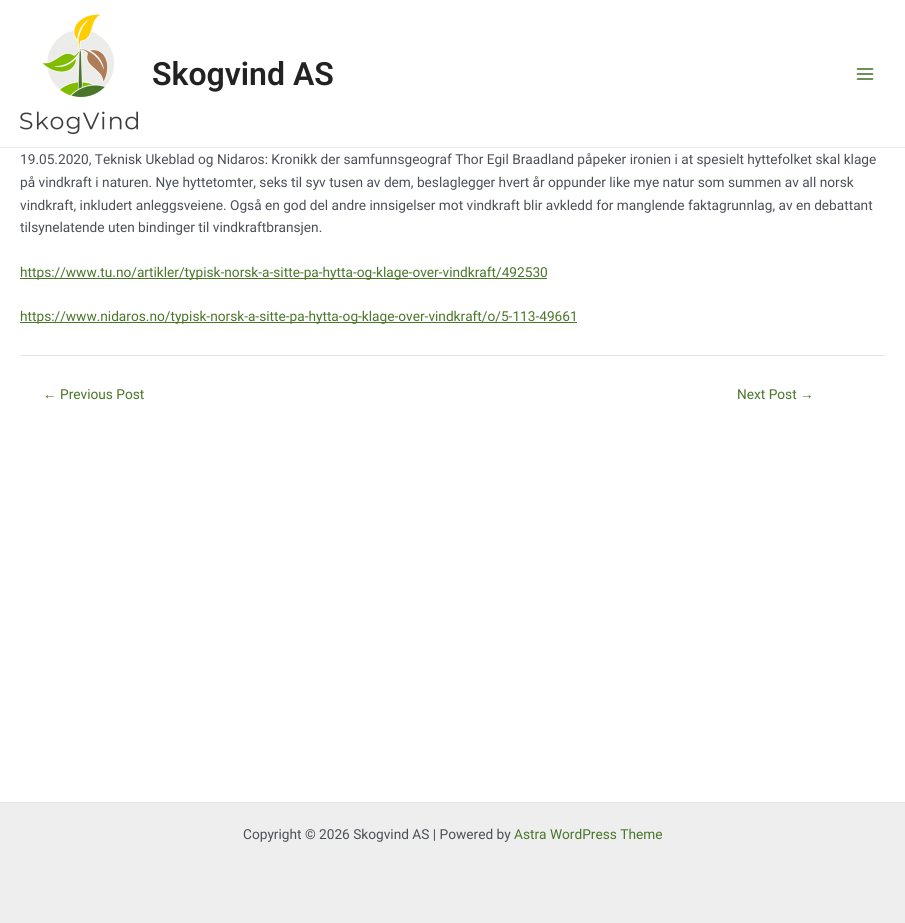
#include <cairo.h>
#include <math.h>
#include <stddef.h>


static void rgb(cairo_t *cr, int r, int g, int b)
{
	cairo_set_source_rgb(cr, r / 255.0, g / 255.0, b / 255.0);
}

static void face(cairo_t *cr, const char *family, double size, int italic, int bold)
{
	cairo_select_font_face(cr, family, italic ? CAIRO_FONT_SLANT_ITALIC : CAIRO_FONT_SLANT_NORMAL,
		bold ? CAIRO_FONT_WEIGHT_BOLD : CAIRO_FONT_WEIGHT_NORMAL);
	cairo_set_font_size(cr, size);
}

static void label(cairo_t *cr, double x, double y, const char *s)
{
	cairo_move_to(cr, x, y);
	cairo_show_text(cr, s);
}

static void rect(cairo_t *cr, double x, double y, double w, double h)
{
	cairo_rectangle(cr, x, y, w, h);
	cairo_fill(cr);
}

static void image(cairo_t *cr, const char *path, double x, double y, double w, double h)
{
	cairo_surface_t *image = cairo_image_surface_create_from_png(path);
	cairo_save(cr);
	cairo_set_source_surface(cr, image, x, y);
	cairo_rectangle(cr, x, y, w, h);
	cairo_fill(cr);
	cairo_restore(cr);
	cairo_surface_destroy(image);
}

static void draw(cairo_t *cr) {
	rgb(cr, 255, 255, 255);
	cairo_paint(cr);
	rgb(cr, 234, 234, 234);
	rect(cr, 0, 147, 905, 1);
	image(cr, "image0.png", 20, 14, 118, 120);
	face(cr, "Roboto SemiBold", 32, 0, 0);
	rgb(cr, 34, 34, 34);
	label(cr, 152, 85, "Skogvind AS");
	image(cr, "image1.png", 856, 68, 18, 12);
	face(cr, "Roboto", 13.68, 0, 0);
	rgb(cr, 75, 79, 88);
	label(cr, 20, 164, "19.05.2020, Teknisk Ukeblad og Nidaros: Kronikk der samfunnsgeograf Thor Egil Braadland påpeker ironien i at spesielt hyttefolket skal klage");
	label(cr, 20, 187, "på vindkraft i naturen. Nye hyttetomter, seks til syv tusen av dem, beslaglegger hvert år oppunder like mye natur som summen av all norsk");
	label(cr, 20, 210, "vindkraft, inkludert anleggsveiene. Også en god del andre innsigelser mot vindkraft blir avkledd for manglende faktagrunnlag, av en debattant");
	label(cr, 20, 232, "tilsynelatende uten bindinger til vindkraftbransjen.");
	rgb(cr, 73, 118, 41);
	rect(cr, 20, 278, 527, 1);
	label(cr, 20, 277, "https://www.tu.no/artikler/typisk-norsk-a-sitte-pa-hytta-og-klage-over-vindkraft/492530");
	rect(cr, 20, 322, 557, 1);
	label(cr, 20, 321, "https://www.nidaros.no/typisk-norsk-a-sitte-pa-hytta-og-klage-over-vindkraft/o/5-113-49661");
	rgb(cr, 229, 229, 229);
	rect(cr, 20, 355, 865, 1);
	face(cr, "Liberation Sans", 13.68, 0, 0);
	rgb(cr, 73, 118, 41);
	label(cr, 43, 399, "←");
	face(cr, "Roboto", 13.68, 0, 0);
	label(cr, 60, 399, "Previous Post");
	label(cr, 737, 399, "Next Post");
	face(cr, "Liberation Sans", 13.68, 0, 0);
	label(cr, 800, 399, "→");
	rgb(cr, 238, 238, 238);
	rect(cr, 0, 803, 905, 120);
	rgb(cr, 229, 229, 229);
	rect(cr, 0, 802, 905, 1);
	face(cr, "Roboto", 13.68, 0, 0);
	rgb(cr, 75, 79, 88);
	label(cr, 243, 839, "Copyright © 2026 Skogvind AS | Powered by");
	rgb(cr, 73, 118, 41);
	label(cr, 514, 839, "Astra WordPress Theme");
}

int main(void) {
	cairo_surface_t *surface = cairo_image_surface_create(CAIRO_FORMAT_RGB24, 905, 923);
	cairo_t *cr = cairo_create(surface);
	cairo_font_options_t *options = cairo_font_options_create();
	cairo_font_options_set_hint_metrics(options, CAIRO_HINT_METRICS_OFF);
	cairo_font_options_set_hint_style(options, CAIRO_HINT_STYLE_NONE);
	cairo_set_font_options(cr, options);
	cairo_set_miter_limit(cr, 4);
	draw(cr);
	cairo_surface_write_to_png(surface, "render.png");
	cairo_font_options_destroy(options);
	cairo_destroy(cr);
	cairo_surface_destroy(surface);
	return 0;
}
